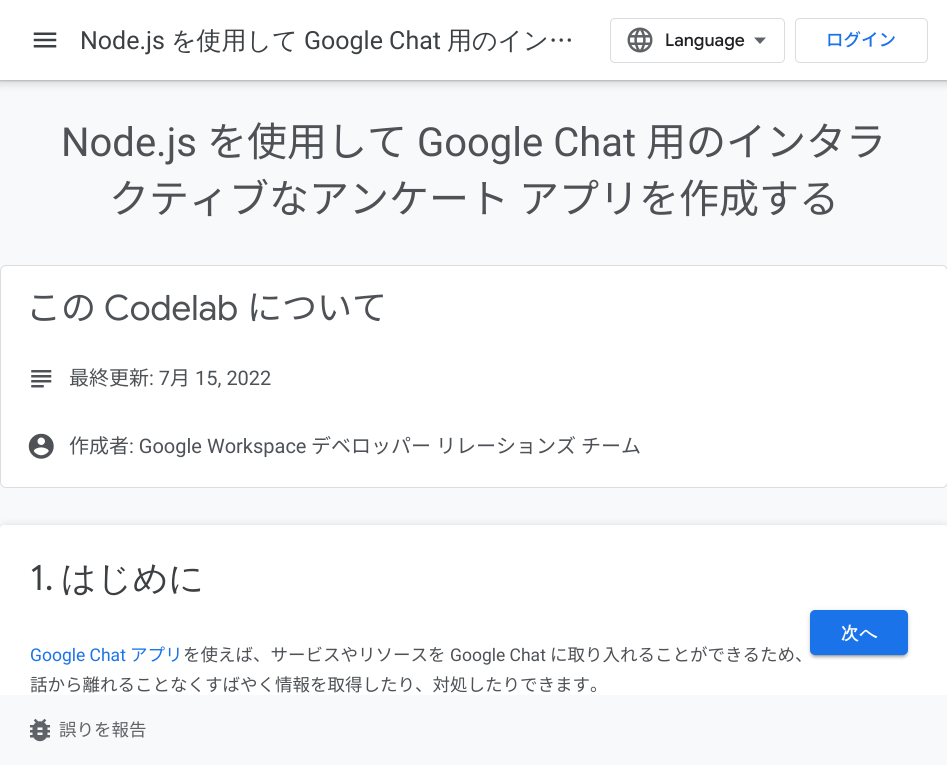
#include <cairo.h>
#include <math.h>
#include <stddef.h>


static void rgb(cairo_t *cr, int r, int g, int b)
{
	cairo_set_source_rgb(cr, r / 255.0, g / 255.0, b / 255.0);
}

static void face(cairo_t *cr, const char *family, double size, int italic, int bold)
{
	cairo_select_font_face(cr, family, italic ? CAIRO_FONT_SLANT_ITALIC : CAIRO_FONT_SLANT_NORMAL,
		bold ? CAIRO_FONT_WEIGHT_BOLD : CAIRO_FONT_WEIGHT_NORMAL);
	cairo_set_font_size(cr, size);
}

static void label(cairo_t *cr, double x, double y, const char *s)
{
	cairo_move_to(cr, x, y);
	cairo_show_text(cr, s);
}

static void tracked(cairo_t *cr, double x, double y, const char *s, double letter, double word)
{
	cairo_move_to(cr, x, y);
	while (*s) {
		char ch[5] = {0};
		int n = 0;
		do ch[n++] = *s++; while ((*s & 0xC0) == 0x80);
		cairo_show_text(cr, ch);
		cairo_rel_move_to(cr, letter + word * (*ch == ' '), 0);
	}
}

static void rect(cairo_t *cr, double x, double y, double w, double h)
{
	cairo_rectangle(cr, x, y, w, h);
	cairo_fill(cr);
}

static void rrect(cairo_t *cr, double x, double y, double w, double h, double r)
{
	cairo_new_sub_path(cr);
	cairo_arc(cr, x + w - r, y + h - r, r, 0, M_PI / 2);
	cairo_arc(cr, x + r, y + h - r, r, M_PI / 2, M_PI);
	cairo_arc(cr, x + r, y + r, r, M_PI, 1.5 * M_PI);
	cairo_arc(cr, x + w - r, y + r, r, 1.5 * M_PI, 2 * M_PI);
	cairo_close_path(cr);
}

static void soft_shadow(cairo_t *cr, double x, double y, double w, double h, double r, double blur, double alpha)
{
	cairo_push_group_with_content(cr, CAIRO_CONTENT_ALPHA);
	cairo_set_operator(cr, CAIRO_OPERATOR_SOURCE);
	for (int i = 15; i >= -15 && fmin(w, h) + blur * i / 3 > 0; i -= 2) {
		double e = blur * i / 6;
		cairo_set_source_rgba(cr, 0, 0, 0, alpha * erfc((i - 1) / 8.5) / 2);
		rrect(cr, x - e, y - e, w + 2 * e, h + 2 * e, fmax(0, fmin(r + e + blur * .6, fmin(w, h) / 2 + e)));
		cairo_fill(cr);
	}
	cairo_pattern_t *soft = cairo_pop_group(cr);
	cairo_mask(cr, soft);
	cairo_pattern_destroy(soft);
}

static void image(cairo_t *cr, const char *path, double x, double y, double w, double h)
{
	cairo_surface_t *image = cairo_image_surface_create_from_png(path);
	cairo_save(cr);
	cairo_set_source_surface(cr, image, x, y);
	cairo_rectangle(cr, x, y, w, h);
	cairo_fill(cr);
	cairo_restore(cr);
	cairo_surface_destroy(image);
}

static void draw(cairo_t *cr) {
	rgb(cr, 248, 249, 250);
	cairo_paint(cr);
	rgb(cr, 60, 64, 67);
	soft_shadow(cr, -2, 0, 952, 85, 0, 4, 0.15);
	soft_shadow(cr, 0, 1, 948, 80, 0, 1, 0.3);
	rgb(cr, 255, 255, 255);
	rect(cr, 0, 0, 947, 80);
	image(cr, "image0.png", 33, 32, 24, 16);
	face(cr, "Roboto", 25, 0, 0);
	rgb(cr, 60, 64, 67);
	label(cr, 80, 49, "Node.js");
	face(cr, "WenQuanYi Zen Hei Medium", 25, 0, 0);
	label(cr, 171, 49, "を使用して");
	face(cr, "Roboto", 25, 0, 0);
	label(cr, 304, 49, "Google Chat");
	face(cr, "WenQuanYi Zen Hei Medium", 25, 0, 0);
	label(cr, 447, 49, "用のイン…");
	rrect(cr, 610.5, 18.5, 174, 44, 4.5);
	rgb(cr, 218, 220, 224);
	cairo_set_line_width(cr, 1);
	cairo_stroke(cr);
	image(cr, "image1.png", 627, 27, 26, 26);
	face(cr, "Google Sans Medium", 17.5, 0, 0);
	rgb(cr, 32, 33, 36);
	label(cr, 665, 46, "Language");
	rgb(cr, 95, 99, 104);
	cairo_new_path(cr);
	cairo_move_to(cr, 760, 44);
	cairo_line_to(cr, 754, 37.5);
	cairo_line_to(cr, 766, 37.5);
	cairo_close_path(cr);
	cairo_fill(cr);
	rrect(cr, 795.5, 18.5, 132, 44, 4.5);
	rgb(cr, 218, 220, 224);
	cairo_stroke(cr);
	face(cr, "Noto Sans JP Medium", 17.5, 0, 0);
	rgb(cr, 26, 115, 232);
	label(cr, 826, 46, "ログイン");
	face(cr, "Roboto", 40, 0, 0);
	rgb(cr, 78, 82, 86);
	label(cr, 61, 156, "Node.js");
	face(cr, "Noto Sans JP", 40, 0, 0);
	label(cr, 207, 156, "を使用して");
	face(cr, "Roboto", 40, 0, 0);
	label(cr, 417, 156, "Google Chat");
	face(cr, "Noto Sans JP", 40, 0, 0);
	label(cr, 646, 156, "用のインタラ");
	tracked(cr, 109, 213, "クティブなアンケート アプリを作成する", 0, 1);
	rgb(cr, 255, 255, 255);
	rrect(cr, 0.5, 265.5, 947, 222, 5.5);
	cairo_fill_preserve(cr);
	rgb(cr, 218, 220, 224);
	cairo_stroke(cr);
	face(cr, "Noto Sans JP", 35, 0, 0);
	rgb(cr, 78, 82, 86);
	label(cr, 26, 320, "この");
	face(cr, "Google Sans", 35, 0, 0);
	label(cr, 104, 320, "Codelab");
	face(cr, "Noto Sans JP", 35, 0, 0);
	label(cr, 247, 320, "について");
	image(cr, "image2.png", 31, 370, 21, 18);
	face(cr, "Noto Sans JP", 20, 0, 0);
	label(cr, 69, 385, "最終更新");
	face(cr, "Roboto", 20, 0, 0);
	label(cr, 149, 385, ": 7");
	face(cr, "Noto Sans JP", 20, 0, 0);
	label(cr, 170, 385, "月");
	face(cr, "Roboto", 20, 0, 0);
	label(cr, 195, 385, "15, 2022");
	image(cr, "image3.png", 28, 433, 26, 26);
	face(cr, "Noto Sans JP", 20, 0, 0);
	label(cr, 69, 453, "作成者");
	face(cr, "Roboto", 20, 0, 0);
	label(cr, 129, 453, ": Google Workspace");
	face(cr, "Noto Sans JP", 20, 0, 0);
	label(cr, 311, 453, "デベロッパー");
	label(cr, 436, 453, "リレーションズ");
	label(cr, 581, 453, "チーム");
	image(cr, "image4.png", 30, 718, 20, 24);
	cairo_save(cr);
	cairo_set_fill_rule(cr, CAIRO_FILL_RULE_EVEN_ODD);
	cairo_new_path(cr);
	cairo_move_to(cr, 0, 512);
	cairo_line_to(cr, 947, 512);
	cairo_line_to(cr, 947, 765);
	cairo_line_to(cr, 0, 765);
	cairo_close_path(cr);
	cairo_move_to(cr, 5, 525);
	cairo_line_to(cr, 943, 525);
	cairo_curve_to(cr, 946, 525, 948, 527, 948, 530);
	cairo_line_to(cr, 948, 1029);
	cairo_curve_to(cr, 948, 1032, 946, 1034, 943, 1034);
	cairo_line_to(cr, 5, 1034);
	cairo_curve_to(cr, 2, 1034, 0, 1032, 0, 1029);
	cairo_line_to(cr, 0, 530);
	cairo_curve_to(cr, 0, 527, 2, 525, 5, 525);
	cairo_close_path(cr);
	cairo_clip(cr);
	rgb(cr, 60, 64, 67);
	soft_shadow(cr, -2, 525, 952, 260, 8, 4, 0.15);
	cairo_restore(cr);
	rgb(cr, 255, 255, 255);
	cairo_new_path(cr);
	cairo_move_to(cr, 5, 525);
	cairo_line_to(cr, 943, 525);
	cairo_curve_to(cr, 946, 525, 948, 527, 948, 530);
	cairo_line_to(cr, 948, 695);
	cairo_line_to(cr, 0, 695);
	cairo_line_to(cr, 0, 530);
	cairo_curve_to(cr, 0, 527, 2, 525, 5, 525);
	cairo_close_path(cr);
	cairo_fill(cr);
	face(cr, "Google Sans", 35, 0, 0);
	rgb(cr, 60, 64, 67);
	label(cr, 30, 590, "1.");
	face(cr, "WenQuanYi Zen Hei Medium", 35, 0, 0);
	label(cr, 61, 590, "はじめに");
	face(cr, "Roboto", 17.5, 0, 0);
	rgb(cr, 26, 115, 232);
	label(cr, 30, 661, "Google Chat");
	face(cr, "Noto Sans JP", 17.5, 0, 0);
	label(cr, 130, 661, "アプリ");
	rgb(cr, 78, 82, 86);
	label(cr, 183, 661, "を使えば、サービスやリソースを");
	face(cr, "Roboto", 17.5, 0, 0);
	label(cr, 450, 661, "Google Chat");
	face(cr, "Noto Sans JP", 17.5, 0, 0);
	label(cr, 550, 661, "に取り入れることができるため、");
	label(cr, 30, 691, "話から離れることなくすばやく情報を取得したり、対処したりできます。");
	rgb(cr, 0, 0, 0);
	soft_shadow(cr, 813, 616, 92, 40, 2.5, 0.5, 0.2);
	soft_shadow(cr, 810, 611, 98, 45, 5, 3, 0.12);
	soft_shadow(cr, 810, 613, 98, 45, 5, 1, 0.14);
	rgb(cr, 26, 115, 232);
	rrect(cr, 810, 610, 98, 45, 5);
	cairo_fill(cr);
	face(cr, "WenQuanYi Zen Hei", 17.5, 0, 1);
	rgb(cr, 255, 255, 255);
	tracked(cr, 841, 639, "次へ", 1, 0);
	face(cr, "Noto Sans JP", 17.5, 0, 0);
	rgb(cr, 95, 99, 104);
	label(cr, 59, 736, "誤りを報告");
}

int main(void) {
	cairo_surface_t *surface = cairo_image_surface_create(CAIRO_FORMAT_RGB24, 947, 765);
	cairo_t *cr = cairo_create(surface);
	cairo_font_options_t *options = cairo_font_options_create();
	cairo_font_options_set_hint_metrics(options, CAIRO_HINT_METRICS_OFF);
	cairo_font_options_set_hint_style(options, CAIRO_HINT_STYLE_NONE);
	cairo_set_font_options(cr, options);
	cairo_set_miter_limit(cr, 4);
	draw(cr);
	cairo_surface_write_to_png(surface, "render.png");
	cairo_font_options_destroy(options);
	cairo_destroy(cr);
	cairo_surface_destroy(surface);
	return 0;
}
